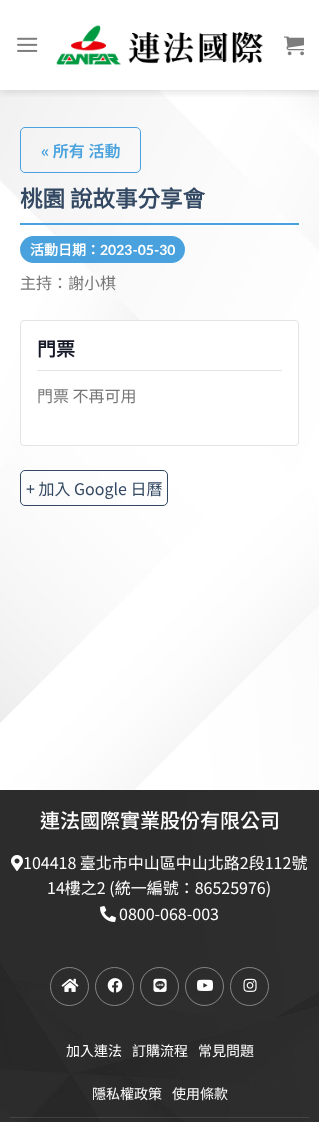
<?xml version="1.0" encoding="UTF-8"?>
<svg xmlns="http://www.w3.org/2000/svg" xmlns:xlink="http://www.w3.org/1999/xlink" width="319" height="1122">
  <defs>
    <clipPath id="clip1"><rect x="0" y="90" width="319" height="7" /></clipPath>
  </defs>
  <rect width="100%" height="100%" fill="#ffffff" />
  <image x="0" y="90" width="319" height="700" xlink:href="image4.png" />
  <g clip-path="url(#clip1)">
    <rect x="1" y="1" width="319" height="90" fill="#000000" fill-opacity="0.15" filter="blur(5px)" />
  </g>
  <image x="17" y="37" width="21" height="15" xlink:href="image1.png" />
  <image x="56" y="25" width="207" height="40" xlink:href="image2.png" />
  <image x="284" y="36" width="20" height="20" xlink:href="image3.png" />
  <rect x="20.5" y="127.5" width="120" height="45" rx="4.5" fill="none" stroke="#49a2de" />
  <rect x="20" y="223" width="279" height="2" fill="#49a2de" />
  <rect x="20" y="236" width="165" height="27" rx="13.5" fill="#49a2de" />
  <rect x="20.5" y="320.5" width="278" height="125" rx="3.5" fill="#ffffff" stroke="#e4e4e4" />
  <rect x="37" y="370" width="245" height="1" fill="#e4e4e4" />
  <rect x="20.5" y="470.5" width="147" height="35" rx="4.5" fill="none" stroke="#334862" />
  <image x="0" y="790" width="319" height="332" xlink:href="image5.png" />
  <image x="11" y="855" width="12" height="16" xlink:href="image6.png" />
  <image x="100" y="906" width="16" height="16" xlink:href="image7.png" />
  <circle cx="69.5" cy="986.5" r="19" fill="none" stroke="#858585" />
  <image x="61" y="978" width="18" height="14" xlink:href="image8.png" />
  <circle cx="114.5" cy="986.5" r="19" fill="none" stroke="#858585" />
  <image x="107" y="978" width="16" height="15" xlink:href="image9.png" />
  <circle cx="159.5" cy="986.5" r="19" fill="none" stroke="#ffffff" stroke-opacity="0.42" />
  <image x="153" y="978" width="14" height="14" xlink:href="image10.png" />
  <circle cx="204.5" cy="986.5" r="19" fill="none" stroke="#ffffff" stroke-opacity="0.42" />
  <image x="197" y="979" width="16" height="12" xlink:href="image11.png" />
  <circle cx="249.5" cy="986.5" r="19" fill="none" stroke="#858585" />
  <image x="243" y="978" width="14" height="14" xlink:href="image12.png" />
  <rect x="10" y="1117" width="299" height="1" fill="#ffffff" fill-opacity="0.11" />
  <text x="41" y="157" style="font-family: Noto Sans TC; font-size: 16px; font-weight: 600; fill: #49a2de">« 所有 活動</text>
  <text x="20" y="207" style="font-family: Noto Sans CJK TC; font-size: 22.5px; font-weight: bold; fill: #334862">桃園 說故事分享會</text>
  <text x="30" y="255" style="font-family: Noto Sans CJK TC; font-size: 14px; font-weight: bold; fill: #ffffff">活動日期：</text>
  <text x="100" y="255" style="font-family: Lato; font-size: 14px; font-weight: bold; fill: #ffffff">2023-05-30</text>
  <text x="20" y="289" style="font-family: Noto Sans TC; font-size: 16px; fill: #777777">主持：謝小棋</text>
  <text x="37" y="356" style="font-family: Noto Sans CJK TC; font-size: 19px; font-weight: bold; fill: #141827">門票</text>
  <text x="37" y="402" style="font-family: Noto Sans TC; font-size: 16px; fill: #777777">門票 不再可用</text>
  <text x="26" y="495" style="font-family: Noto Sans TC; font-size: 16px; fill: #334862">+ 加入 Google 日曆</text>
  <text x="40" y="828" style="font-family: Noto Sans TC; font-size: 20px; font-weight: 500; fill: #ffffff">連法國際實業股份有限公司</text>
  <text x="23" y="869" style="font-family: Noto Sans TC; font-size: 16px; fill: #ffffff">104418 臺北市中山區中山北路2段112號</text>
  <text x="47" y="894" style="font-family: Noto Sans TC; font-size: 16px; fill: #ffffff">14樓之2 (統一編號：86525976)</text>
  <text x="119" y="920" style="font-family: Noto Sans TC; font-size: 16px; fill: #ffffff">0800-068-003</text>
  <text x="66" y="1056" style="font-family: Noto Sans TC; font-size: 14px; fill: #ffffff">加入連法</text>
  <text x="132" y="1056" style="font-family: Noto Sans TC; font-size: 14px; fill: #ffffff">訂購流程</text>
  <text x="198" y="1056" style="font-family: Noto Sans TC; font-size: 14px; fill: #ffffff">常見問題</text>
  <text x="92" y="1099" style="font-family: Noto Sans TC; font-size: 14px; fill: #ffffff">隱私權政策</text>
  <text x="172" y="1099" style="font-family: Noto Sans TC; font-size: 14px; fill: #ffffff">使用條款</text>
</svg>
